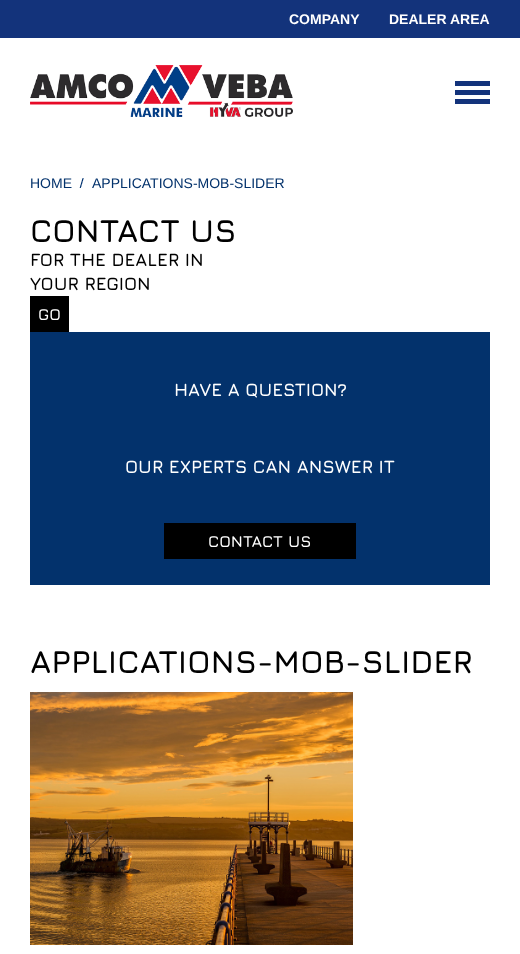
<?xml version="1.0" encoding="UTF-8"?>
<svg xmlns="http://www.w3.org/2000/svg" xmlns:xlink="http://www.w3.org/1999/xlink" width="520" height="954">
  <rect width="100%" height="100%" fill="#ffffff" />
  <rect width="520" height="38" fill="#13337b" />
  <image x="30" y="65" width="263" height="52" xlink:href="image1.png" />
  <rect x="455" y="81" width="35" height="5" fill="#13337b" />
  <rect x="455" y="90" width="35" height="5" fill="#13337b" />
  <rect x="455" y="99" width="35" height="5" fill="#13337b" />
  <image x="79" y="178" width="5" height="10" xlink:href="image2.png" />
  <rect x="30" y="296" width="39" height="36" fill="#000000" />
  <rect x="30" y="332" width="460" height="253" fill="#03326c" />
  <rect x="164" y="523" width="192" height="36" fill="#000000" />
  <image x="30" y="692" width="323" height="253" xlink:href="image3.png" />
  <text x="289" y="24" style="font-family: Liberation Sans; font-size: 14px; font-weight: bold; fill: #ffffff">COMPANY</text>
  <text x="389" y="24" style="font-family: Liberation Sans; font-size: 14px; font-weight: bold; fill: #ffffff">DEALER AREA</text>
  <text x="30" y="188" style="font-family: Liberation Sans; font-size: 14px; fill: #03326c">HOME</text>
  <text x="92" y="188" style="font-family: Liberation Sans; font-size: 14px; fill: #03326c">APPLICATIONS-MOB-SLIDER</text>
  <text x="30" y="242" style="font-family: Jura; font-size: 32px; font-weight: bold; fill: #000000">CONTACT US</text>
  <text x="30" y="266" style="font-family: Jura; font-size: 18px; font-weight: bold; fill: #000000">FOR THE DEALER IN</text>
  <text x="30" y="290" style="font-family: Jura; font-size: 18px; font-weight: bold; fill: #000000">YOUR REGION</text>
  <text x="38" y="320" style="font-family: Jura; font-size: 16px; font-weight: bold; fill: #ffffff">GO</text>
  <text x="174" y="396" style="font-family: Jura; font-size: 18px; font-weight: bold; fill: #ffffff">HAVE A QUESTION?</text>
  <text x="125" y="473" style="font-family: Jura; font-size: 18px; font-weight: bold; fill: #ffffff">OUR EXPERTS CAN ANSWER IT</text>
  <text x="208" y="547" style="font-family: Jura; font-size: 16px; font-weight: bold; fill: #ffffff">CONTACT US</text>
  <text x="30" y="673" style="font-family: Jura; font-size: 32px; font-weight: bold; fill: #000000">APPLICATIONS-MOB-SLIDER</text>
</svg>
